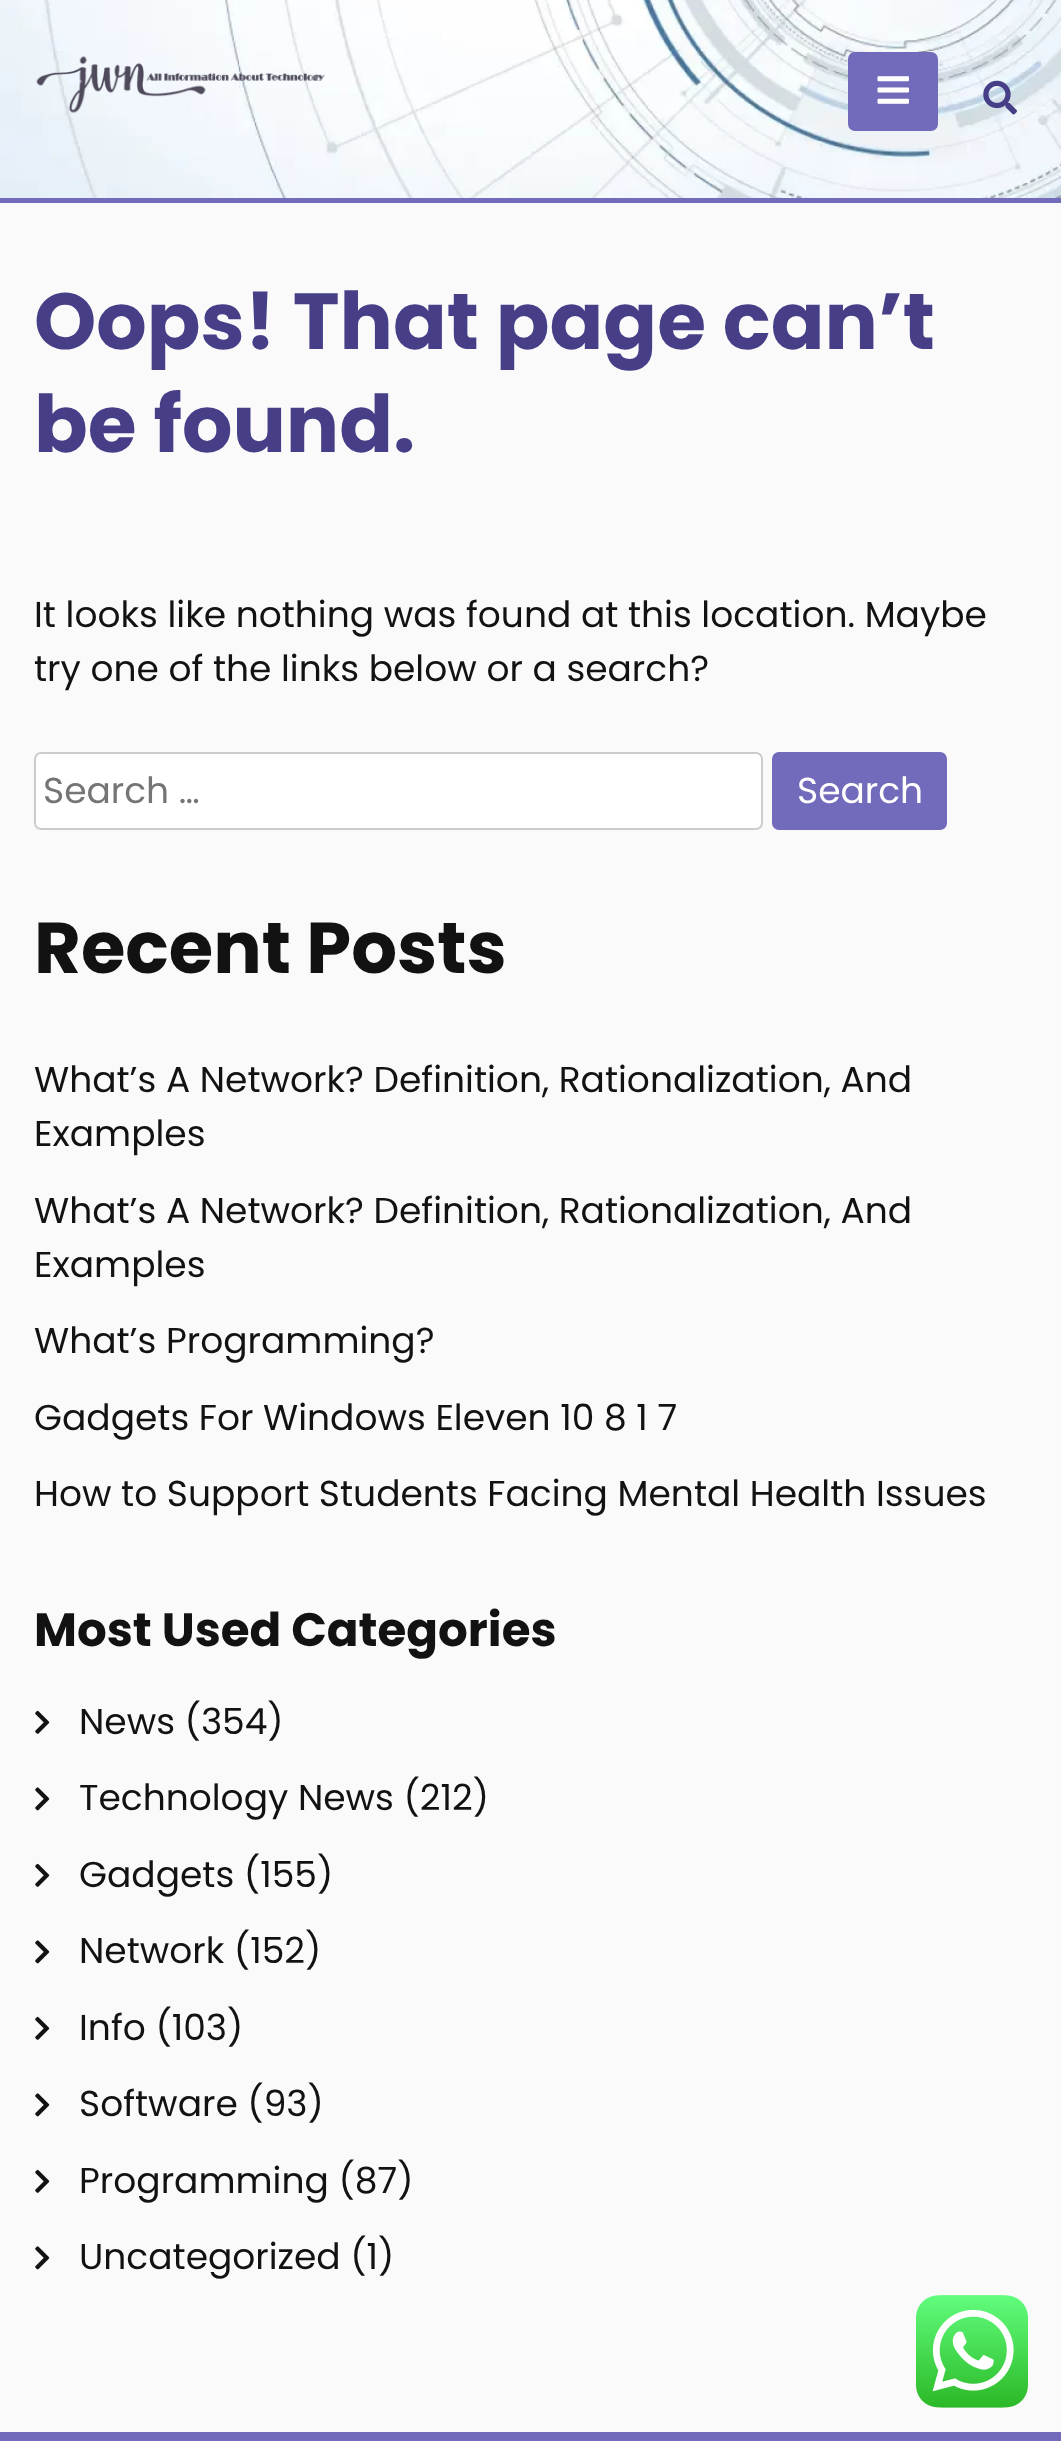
<?xml version="1.0" encoding="UTF-8"?>
<svg xmlns="http://www.w3.org/2000/svg" xmlns:xlink="http://www.w3.org/1999/xlink" width="1061" height="2441">
  <rect width="100%" height="100%" fill="#fafafa" />
  <image x="0" y="0" width="1061" height="198" xlink:href="image1.png" />
  <rect y="198" width="1061" height="5" fill="#726abb" />
  <rect x="849" y="53" width="88" height="77" rx="6" fill="#726abb" stroke="#726abb" stroke-width="2" />
  <image x="877" y="76" width="32" height="28" xlink:href="image2.png" />
  <image x="36" y="56" width="289" height="57" xlink:href="image3.png" />
  <image x="983" y="80" width="34" height="35" xlink:href="image4.png" />
  <rect x="35" y="753" width="727" height="76" rx="6" fill="#ffffff" stroke="#cccccc" stroke-width="2" />
  <rect x="773" y="753" width="173" height="76" rx="6" fill="#726abb" stroke="#726abb" stroke-width="2" />
  <image x="35" y="1710" width="15" height="24" xlink:href="image5.png" />
  <image x="35" y="1787" width="15" height="24" xlink:href="image6.png" />
  <image x="35" y="1863" width="15" height="24" xlink:href="image5.png" />
  <image x="35" y="1940" width="15" height="24" xlink:href="image6.png" />
  <image x="35" y="2016" width="15" height="24" xlink:href="image5.png" />
  <image x="35" y="2093" width="15" height="24" xlink:href="image6.png" />
  <image x="35" y="2169" width="15" height="24" xlink:href="image5.png" />
  <image x="35" y="2246" width="15" height="24" xlink:href="image6.png" />
  <rect y="2432" width="1061" height="9" fill="#726abb" />
  <image x="916" y="2295" width="112" height="113" xlink:href="image7.png" />
  <text x="34" y="349" style="font-family: Poppins; font-size: 79.25px; font-weight: bold; fill: #463f87">Oops! That page can’t</text>
  <text x="34" y="452" style="font-family: Poppins; font-size: 79.25px; font-weight: bold; fill: #463f87">be found.</text>
  <text x="34" y="627" style="font-family: Poppins; font-size: 36px; fill: #121212">It looks like nothing was found at this location. Maybe</text>
  <text x="34" y="681" style="font-family: Poppins; font-size: 36px; fill: #121212">try one of the links below or a search?</text>
  <text x="43" y="803" style="font-family: Poppins; font-size: 36px; fill: #757575">Search …</text>
  <text x="797" y="803" style="font-family: Poppins; font-size: 36px; fill: #ffffff">Search</text>
  <text x="34" y="973" style="font-family: Poppins; font-size: 72px; font-weight: bold; fill: #121212">Recent Posts</text>
  <text x="34" y="1092" style="font-family: Poppins; font-size: 36px; fill: #121212">What’s A Network? Definition, Rationalization, And</text>
  <text x="34" y="1146" style="font-family: Poppins; font-size: 36px; fill: #121212">Examples</text>
  <text x="34" y="1223" style="font-family: Poppins; font-size: 36px; fill: #121212">What’s A Network? Definition, Rationalization, And</text>
  <text x="34" y="1277" style="font-family: Poppins; font-size: 36px; fill: #121212">Examples</text>
  <text x="34" y="1353" style="font-family: Poppins; font-size: 36px; fill: #121212">What’s Programming?</text>
  <text x="34" y="1430" style="font-family: Poppins; font-size: 36px; fill: #121212">Gadgets For Windows Eleven 10 8 1 7</text>
  <text x="34" y="1506" style="font-family: Poppins; font-size: 36px; fill: #121212">How to Support Students Facing Mental Health Issues</text>
  <text x="34" y="1646" style="font-family: Poppins; font-size: 46.75px; font-weight: bold; fill: #121212">Most Used Categories</text>
  <text x="79" y="1734" style="font-family: Poppins; font-size: 36px; fill: #121212">News (354)</text>
  <text x="79" y="1810" style="font-family: Poppins; font-size: 36px; fill: #121212">Technology News (212)</text>
  <text x="79" y="1887" style="font-family: Poppins; font-size: 36px; fill: #121212">Gadgets (155)</text>
  <text x="79" y="1963" style="font-family: Poppins; font-size: 36px; fill: #121212">Network (152)</text>
  <text x="79" y="2040" style="font-family: Poppins; font-size: 36px; fill: #121212">Info (103)</text>
  <text x="79" y="2116" style="font-family: Poppins; font-size: 36px; fill: #121212">Software (93)</text>
  <text x="79" y="2193" style="font-family: Poppins; font-size: 36px; fill: #121212">Programming (87)</text>
  <text x="79" y="2269" style="font-family: Poppins; font-size: 36px; fill: #121212">Uncategorized (1)</text>
</svg>
